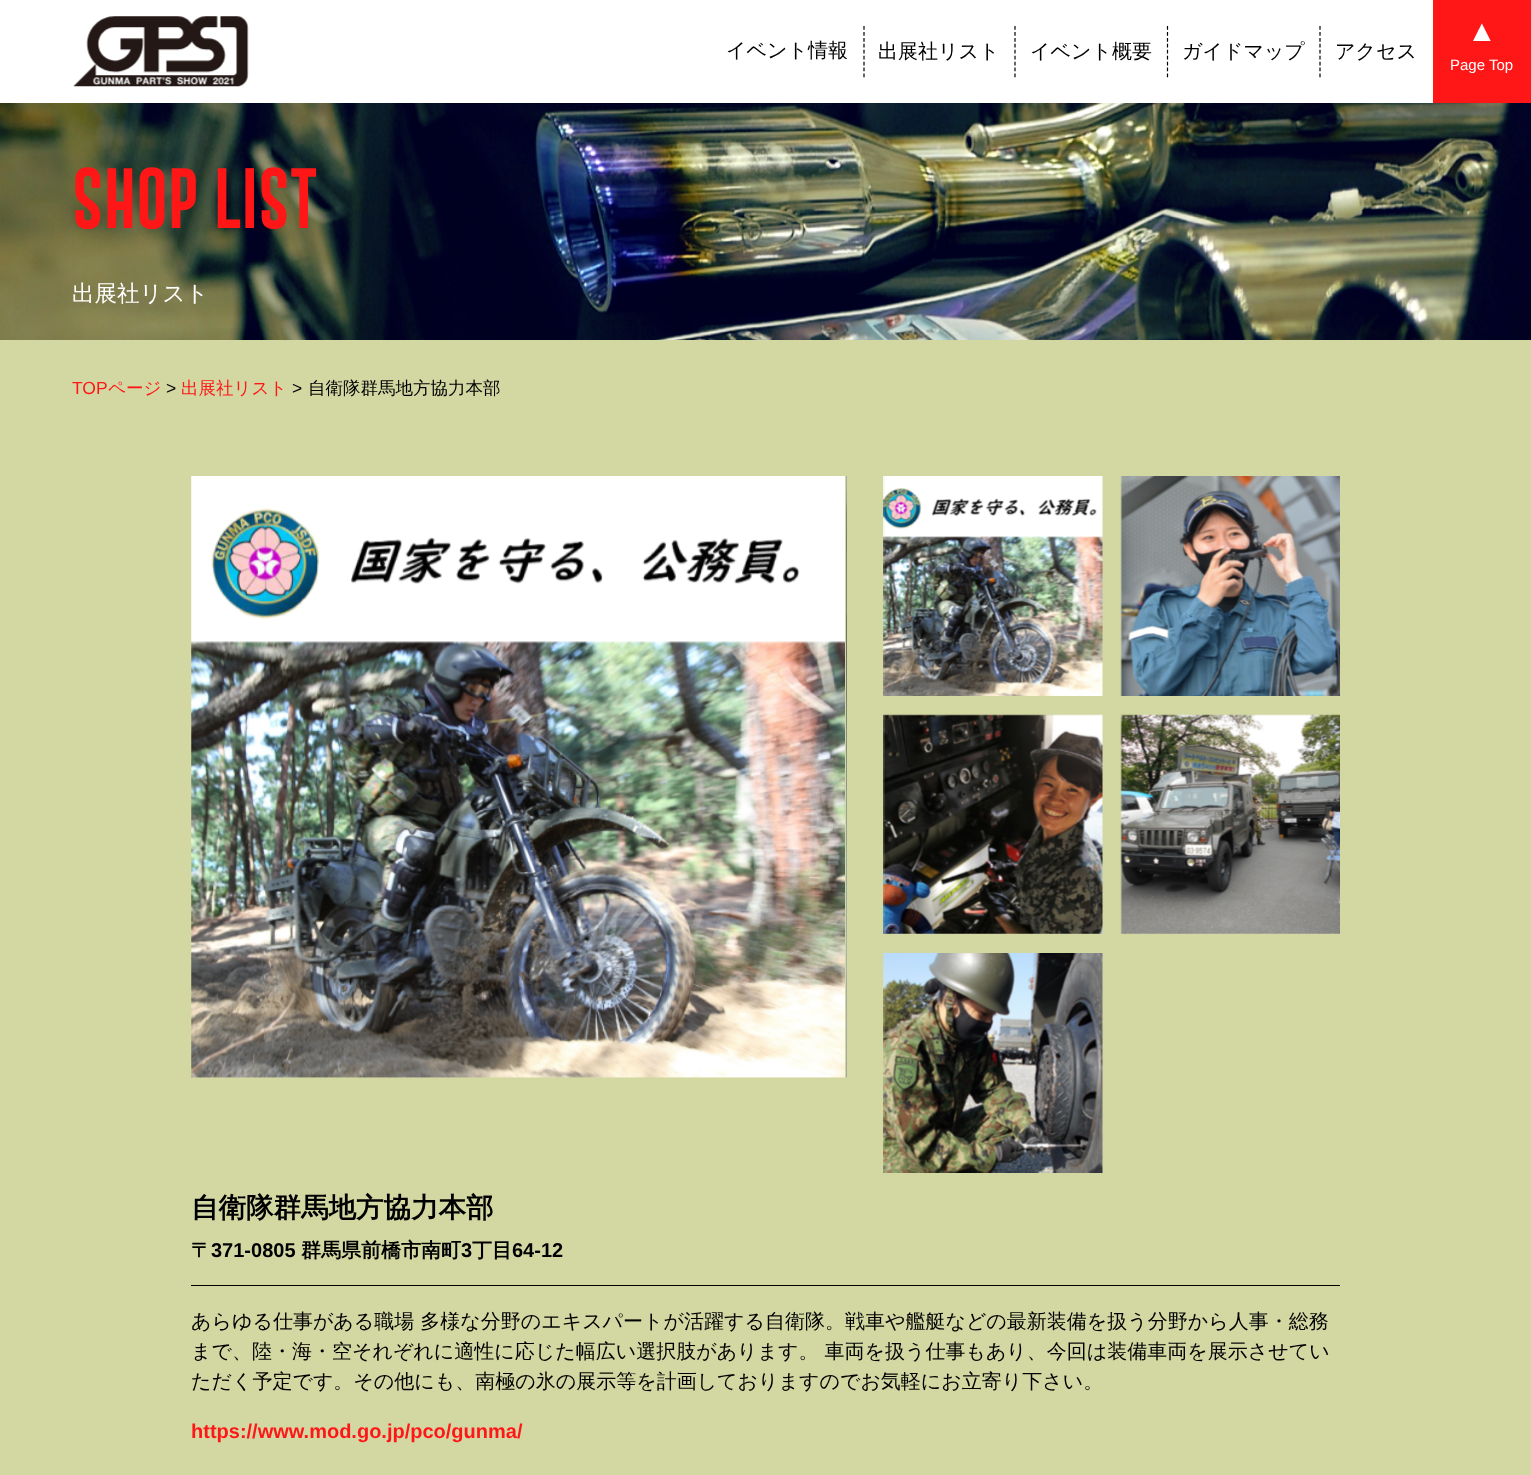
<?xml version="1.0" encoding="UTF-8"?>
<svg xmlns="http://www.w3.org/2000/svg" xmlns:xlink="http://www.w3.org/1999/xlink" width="1531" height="1475">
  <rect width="100%" height="100%" fill="#d3d8a3" />
  <rect width="1433" height="103" fill="#ffffff" />
  <image x="73" y="16" width="176" height="71" xlink:href="image1.png" />
  <path d="M 864 26 v 51.5" fill="none" stroke="#000000" stroke-width="1.2" stroke-dasharray="3.75 2.19" />
  <path d="M 1015 26 v 51.5" fill="none" stroke="#000000" stroke-width="1.2" stroke-dasharray="3.75 2.19" />
  <path d="M 1167.5 26 v 51.5" fill="none" stroke="#000000" stroke-width="1.2" stroke-dasharray="3.75 2.19" />
  <path d="M 1320 26 v 51.5" fill="none" stroke="#000000" stroke-width="1.2" stroke-dasharray="3.75 2.19" />
  <rect x="1433" width="98" height="103" fill="#ff1717" />
  <image x="0" y="103" width="1531" height="237" xlink:href="image2.png" />
  <image x="191" y="476" width="654" height="602" xlink:href="image3.png" />
  <image x="846" y="476" width="1" height="602" xlink:href="image4.png" />
  <image x="883" y="476" width="220" height="220" xlink:href="image5.png" />
  <image x="1120" y="476" width="220" height="220" xlink:href="image6.png" />
  <image x="883" y="714" width="220" height="220" xlink:href="image7.png" />
  <image x="1120" y="714" width="220" height="220" xlink:href="image8.png" />
  <image x="883" y="953" width="220" height="220" xlink:href="image9.png" />
  <rect x="191" y="1285" width="1149" height="1" fill="#000000" />
  <text x="726" y="57" style="font-family: WenQuanYi Zen Hei; font-size: 20px; font-weight: 500; fill: #000000">イベント情報</text>
  <text x="878" y="58" style="font-family: WenQuanYi Zen Hei; font-size: 20px; font-weight: 500; fill: #000000">出展社リスト</text>
  <text x="1030" y="58" style="font-family: WenQuanYi Zen Hei; font-size: 20px; font-weight: 500; fill: #000000">イベント概要</text>
  <text x="1182" y="58" style="font-family: WenQuanYi Zen Hei; font-size: 20px; font-weight: 500; fill: #000000">ガイドマップ</text>
  <text x="1335" y="58" style="font-family: WenQuanYi Zen Hei; font-size: 20px; font-weight: 500; fill: #000000">アクセス</text>
  <text x="1467" y="41" style="font-family: Liberation Sans; font-size: 30px; fill: #ffffff">▲</text>
  <text x="1450" y="70" style="font-family: Liberation Sans; font-size: 15px; fill: #ffffff">Page Top</text>
  <text x="72" y="228" style="font-family: 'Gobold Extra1'; font-size: 62.5px; font-weight: bold; fill: #ff1717">SHOP LIST</text>
  <text x="72" y="301" style="font-family: WenQuanYi Zen Hei; font-size: 22.5px; font-weight: 500; fill: #ffffff">出展社リスト</text>
  <text x="72" y="394" style="font-family: Liberation Sans; font-size: 17.5px; fill: #ff1717">TOP</text>
  <text x="108" y="394" style="font-family: WenQuanYi Zen Hei; font-size: 17.5px; font-weight: 500; fill: #ff1717">ページ</text>
  <text x="166" y="394" style="font-family: Liberation Sans; font-size: 17.5px; fill: #000000">&gt;</text>
  <text x="181" y="394" style="font-family: WenQuanYi Zen Hei; font-size: 17.5px; font-weight: 500; fill: #ff1717">出展社リスト</text>
  <text x="292" y="394" style="font-family: Liberation Sans; font-size: 17.5px; fill: #000000">&gt;</text>
  <text x="308" y="394" style="font-family: WenQuanYi Zen Hei; font-size: 17.5px; font-weight: 500; fill: #000000">自衛隊群馬地方協力本部</text>
  <text x="191" y="1217" style="font-family: WenQuanYi Zen Hei; font-size: 27.5px; font-weight: bold; fill: #000000">自衛隊群馬地方協力本部</text>
  <text x="191" y="1257" style="font-family: WenQuanYi Zen Hei; font-size: 20px; font-weight: bold; fill: #000000">〒</text>
  <text x="211" y="1257" style="font-family: Liberation Sans; font-size: 20px; font-weight: bold; fill: #000000">371-0805</text>
  <text x="301" y="1257" style="font-family: WenQuanYi Zen Hei; font-size: 20px; font-weight: bold; fill: #000000">群馬県前橋市南町</text>
  <text x="461" y="1257" style="font-family: Liberation Sans; font-size: 20px; font-weight: bold; fill: #000000">3</text>
  <text x="472" y="1257" style="font-family: WenQuanYi Zen Hei; font-size: 20px; font-weight: bold; fill: #000000">丁目</text>
  <text x="512" y="1257" style="font-family: Liberation Sans; font-size: 20px; font-weight: bold; fill: #000000">64-12</text>
  <text x="191" y="1328" style="font-family: WenQuanYi Zen Hei; font-size: 20px; font-weight: 500; fill: #000000">あらゆる仕事がある職場 多様な分野のエキスパートが活躍する自衛隊。戦車や艦艇などの最新装備を扱う分野から人事・総務</text>
  <text x="191" y="1358" style="font-family: WenQuanYi Zen Hei; font-size: 20px; font-weight: 500; fill: #000000">まで、陸・海・空それぞれに適性に応じた幅広い選択肢があります。 車両を扱う仕事もあり、今回は装備車両を展示させてい</text>
  <text x="191" y="1388" style="font-family: WenQuanYi Zen Hei; font-size: 20px; font-weight: 500; fill: #000000">ただく予定です。その他にも、南極の氷の展示等を計画しておりますのでお気軽にお立寄り下さい。</text>
  <text x="191" y="1438" style="font-family: Liberation Sans; font-size: 20px; font-weight: bold; fill: #ff1717">https://www.mod.go.jp/pco/gunma/</text>
</svg>
